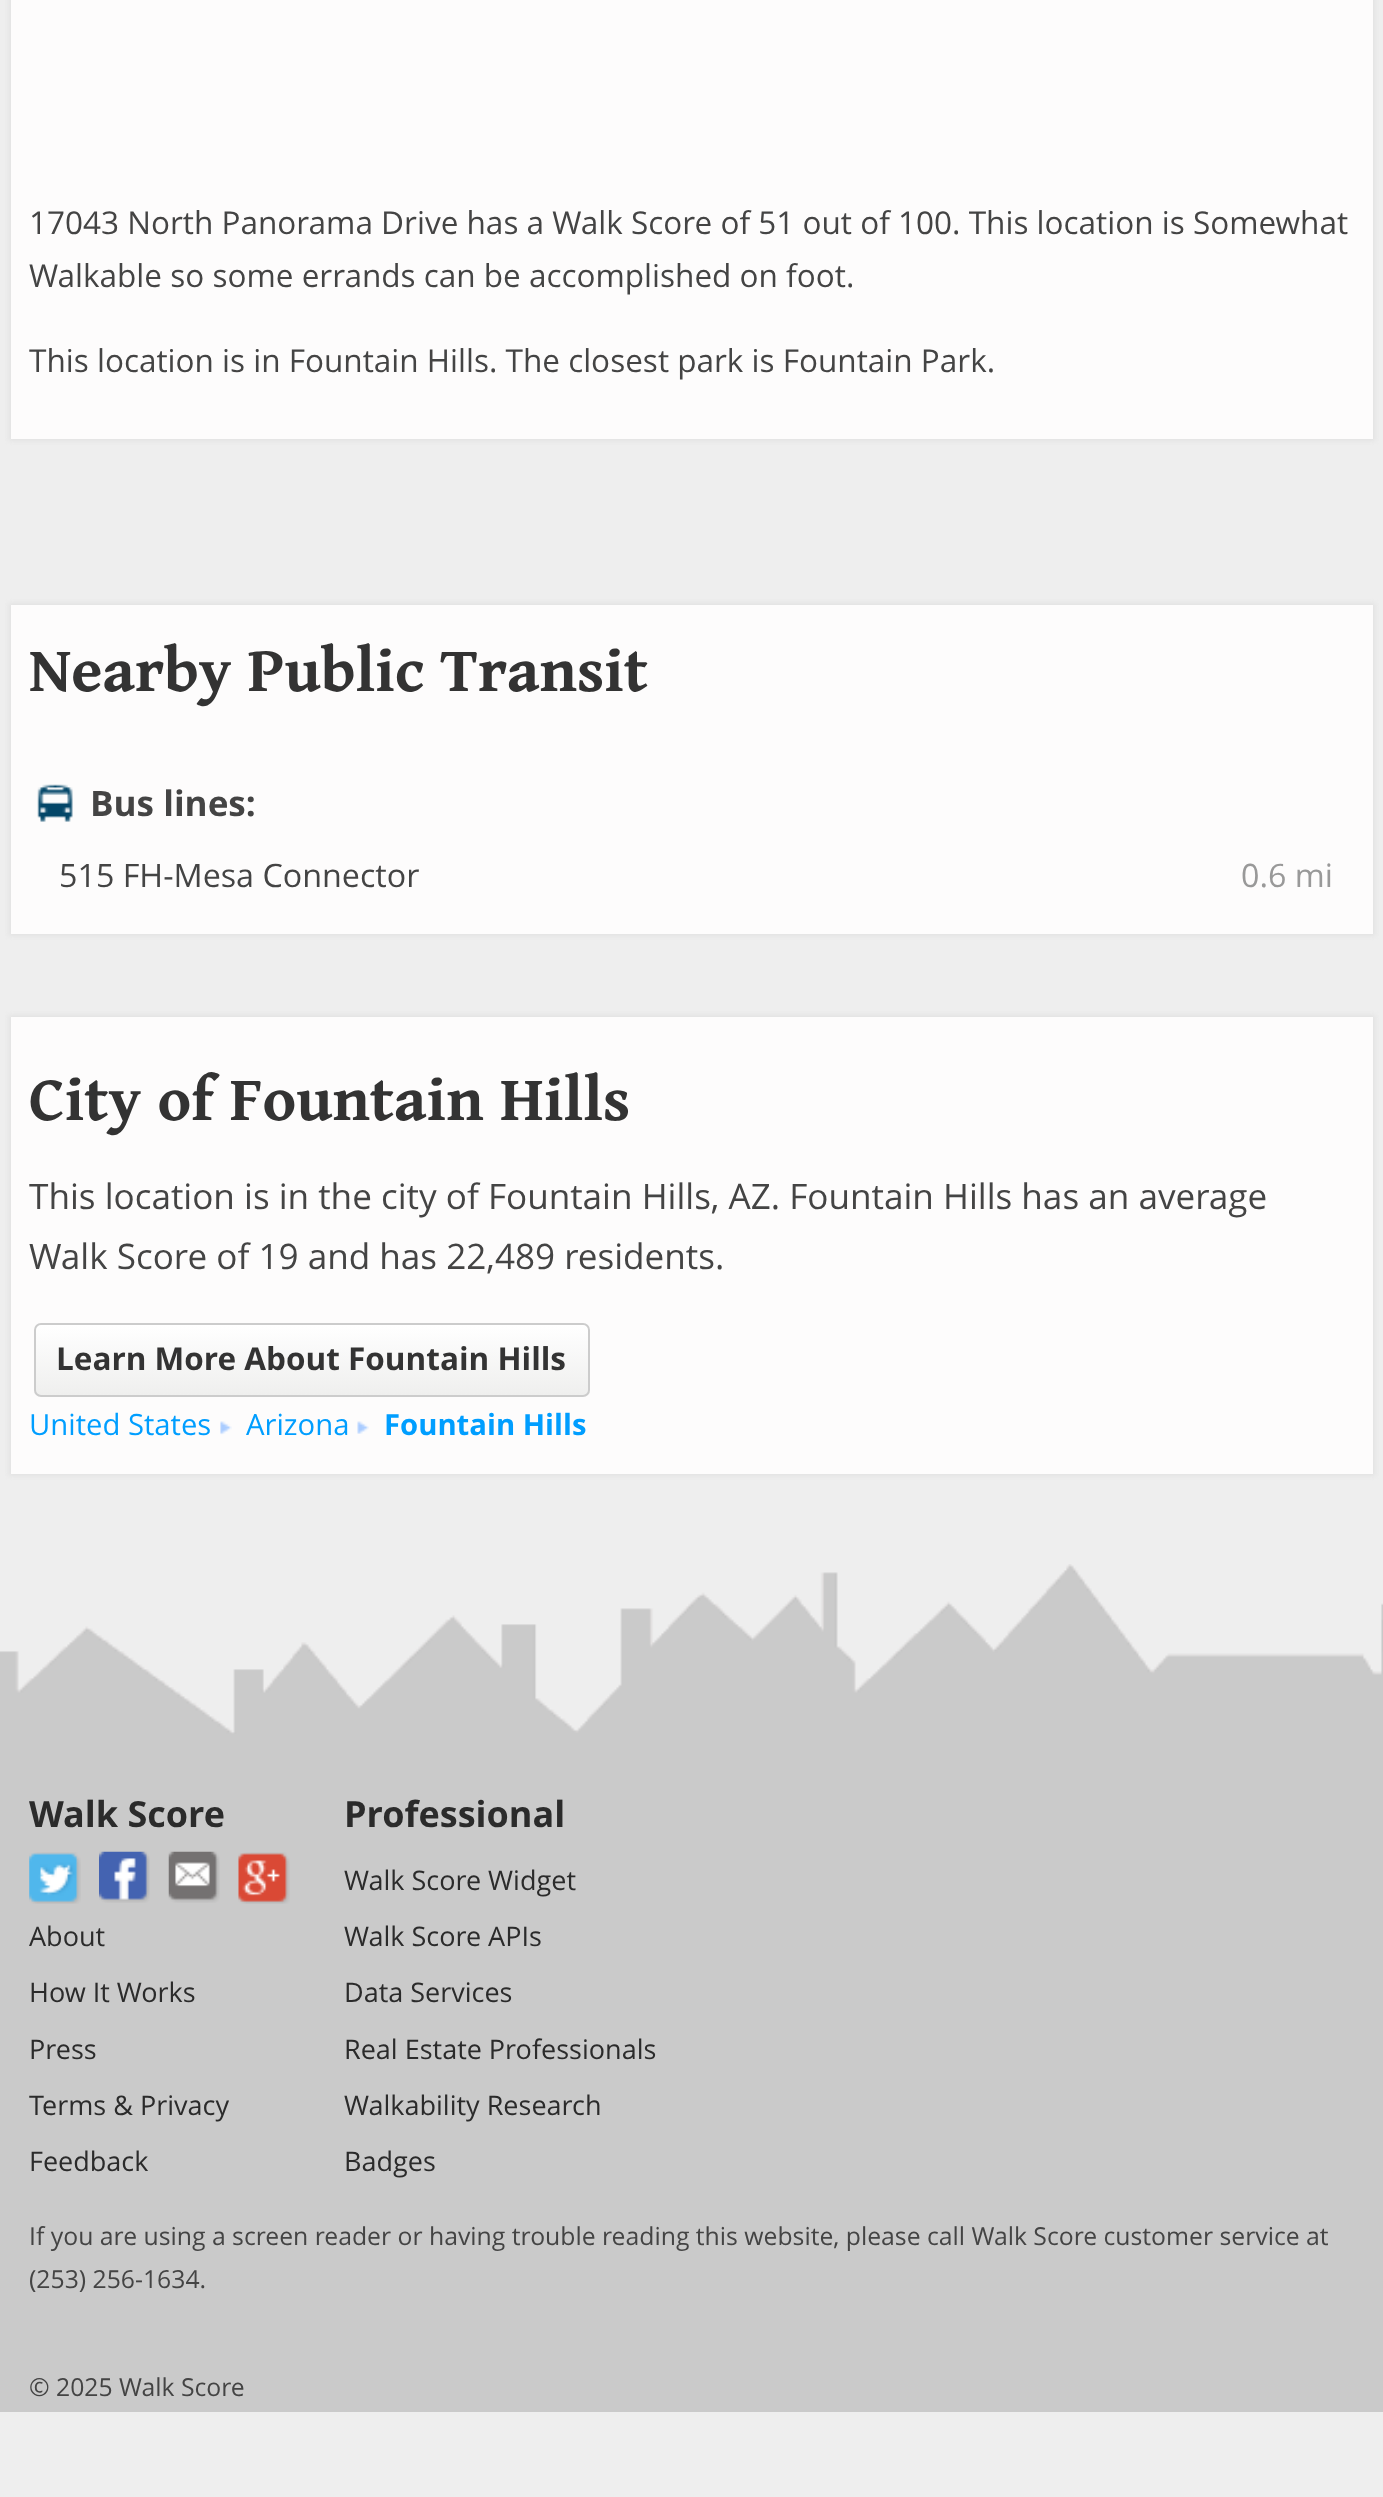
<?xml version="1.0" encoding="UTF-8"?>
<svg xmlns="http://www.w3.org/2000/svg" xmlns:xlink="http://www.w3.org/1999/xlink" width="1383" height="2497">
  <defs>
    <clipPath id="clip1"><rect x="34" y="1323" width="556" height="74" rx="7" /></clipPath>
    <linearGradient id="g1" gradientUnits="userSpaceOnUse" x1="312" y1="1325" x2="312" y2="1395"><stop offset="0" stop-color="#ffffff" /><stop offset="1" stop-color="#efefee" /></linearGradient>
  </defs>
  <rect width="100%" height="100%" fill="#eeeeee" />
  <rect x="9" y="-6" width="1366" height="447" fill="#e2e2e2" filter="blur(2px)" />
  <rect x="11" width="1362" height="439" fill="#fdfcfc" />
  <rect x="9" y="603" width="1366" height="333" fill="#e2e2e2" filter="blur(2px)" />
  <rect x="11" y="605" width="1362" height="329" fill="#fdfcfc" />
  <image x="37" y="784" width="36" height="38" xlink:href="image1.png" />
  <rect x="9" y="1015" width="1366" height="461" fill="#e2e2e2" filter="blur(2px)" />
  <rect x="11" y="1017" width="1362" height="457" fill="#fdfcfc" />
  <g clip-path="url(#clip1)">
    <rect x="34" y="1325" width="556" height="70" fill="url(#g1)" />
  </g>
  <rect x="35" y="1324" width="554" height="72" rx="6" fill="none" stroke="#cccccc" stroke-width="2" />
  <image x="220" y="1421" width="12" height="14" xlink:href="image2.png" />
  <image x="357" y="1421" width="12" height="13" xlink:href="image3.png" />
  <rect y="1734" width="1383" height="678" fill="#cacaca" />
  <image x="0" y="1564" width="1383" height="170" xlink:href="image4.png" />
  <image x="29" y="1852" width="52" height="52" xlink:href="image5.png" />
  <image x="99" y="1851" width="51" height="52" xlink:href="image6.png" />
  <image x="168" y="1851" width="52" height="52" xlink:href="image7.png" />
  <image x="238" y="1852" width="52" height="52" xlink:href="image8.png" />
  <text x="29" y="234" style="font-family: Open Sans; font-size: 31.5px; fill: #444444">17043 North Panorama Drive has a Walk Score of 51 out of 100. This location is Somewhat</text>
  <text x="29" y="287" style="font-family: Open Sans; font-size: 31.5px; fill: #444444">Walkable so some errands can be accomplished on foot.</text>
  <text x="29" y="372" style="font-family: Open Sans; font-size: 31.5px; fill: #444444">This location is in Fountain Hills. The closest park is Fountain Park.</text>
  <text x="29" y="691" style="font-family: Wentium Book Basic; font-size: 63.4px; font-weight: bold; fill: #333333">Nearby Public Transit</text>
  <text x="90" y="816" style="font-family: Open Sans; font-size: 35.1px; font-weight: bold; fill: #444444">Bus lines:</text>
  <text x="59" y="887" style="font-family: Open Sans; font-size: 32.25px; fill: #444444">515 FH-Mesa Connector</text>
  <text x="1241" y="887" style="font-family: Open Sans; font-size: 32.25px; fill: #999999">0.6 mi</text>
  <text x="29" y="1120" style="font-family: Wentium Book Basic; font-size: 63.4px; font-weight: bold; fill: #333333">City of Fountain Hills</text>
  <text x="29" y="1209" style="font-family: Open Sans; font-size: 35.1px; fill: #444444">This location is in the city of Fountain Hills, AZ. Fountain Hills has an average</text>
  <text x="29" y="1269" style="font-family: Open Sans; font-size: 35.1px; fill: #444444">Walk Score of 19 and has 22,489 residents.</text>
  <text x="56" y="1370" style="font-family: Open Sans; font-size: 31.5px; font-weight: bold; fill: #333333">Learn More About Fountain Hills</text>
  <text x="29" y="1435" style="font-family: Open Sans; font-size: 29.25px; fill: #009eff">United States</text>
  <text x="246" y="1435" style="font-family: Open Sans; font-size: 29.25px; fill: #009eff">Arizona</text>
  <text x="384" y="1435" style="font-family: Open Sans; font-size: 29.25px; font-weight: bold; fill: #009eff">Fountain Hills</text>
  <text x="29" y="1827" style="font-family: Open Sans; font-size: 36px; font-weight: bold; fill: #2b2b2b">Walk Score</text>
  <text x="29" y="1946" style="font-family: Open Sans; font-size: 27px; fill: #2b2b2b">About</text>
  <text x="29" y="2002" style="font-family: Open Sans; font-size: 27px; fill: #2b2b2b">How It Works</text>
  <text x="29" y="2059" style="font-family: Open Sans; font-size: 27px; fill: #2b2b2b">Press</text>
  <text x="29" y="2115" style="font-family: Open Sans; font-size: 27px; fill: #2b2b2b">Terms &amp; Privacy</text>
  <text x="29" y="2171" style="font-family: Open Sans; font-size: 27px; fill: #2b2b2b">Feedback</text>
  <text x="344" y="1827" style="font-family: Open Sans; font-size: 36px; font-weight: bold; fill: #2b2b2b">Professional</text>
  <text x="344" y="1890" style="font-family: Open Sans; font-size: 27px; fill: #2b2b2b">Walk Score Widget</text>
  <text x="344" y="1946" style="font-family: Open Sans; font-size: 27px; fill: #2b2b2b">Walk Score APIs</text>
  <text x="344" y="2002" style="font-family: Open Sans; font-size: 27px; fill: #2b2b2b">Data Services</text>
  <text x="344" y="2059" style="font-family: Open Sans; font-size: 27px; fill: #2b2b2b">Real Estate Professionals</text>
  <text x="344" y="2115" style="font-family: Open Sans; font-size: 27px; fill: #2b2b2b">Walkability Research</text>
  <text x="344" y="2171" style="font-family: Open Sans; font-size: 27px; fill: #2b2b2b">Badges</text>
  <text x="29" y="2245" style="font-family: Open Sans; font-size: 24.75px; fill: #444444">If you are using a screen reader or having trouble reading this website, please call Walk Score customer service at</text>
  <text x="29" y="2288" style="font-family: Open Sans; font-size: 24.75px; fill: #444444">(253) 256-1634.</text>
  <text x="29" y="2396" style="font-family: Open Sans; font-size: 24.75px; fill: #444444">© 2025 Walk Score</text>
</svg>
